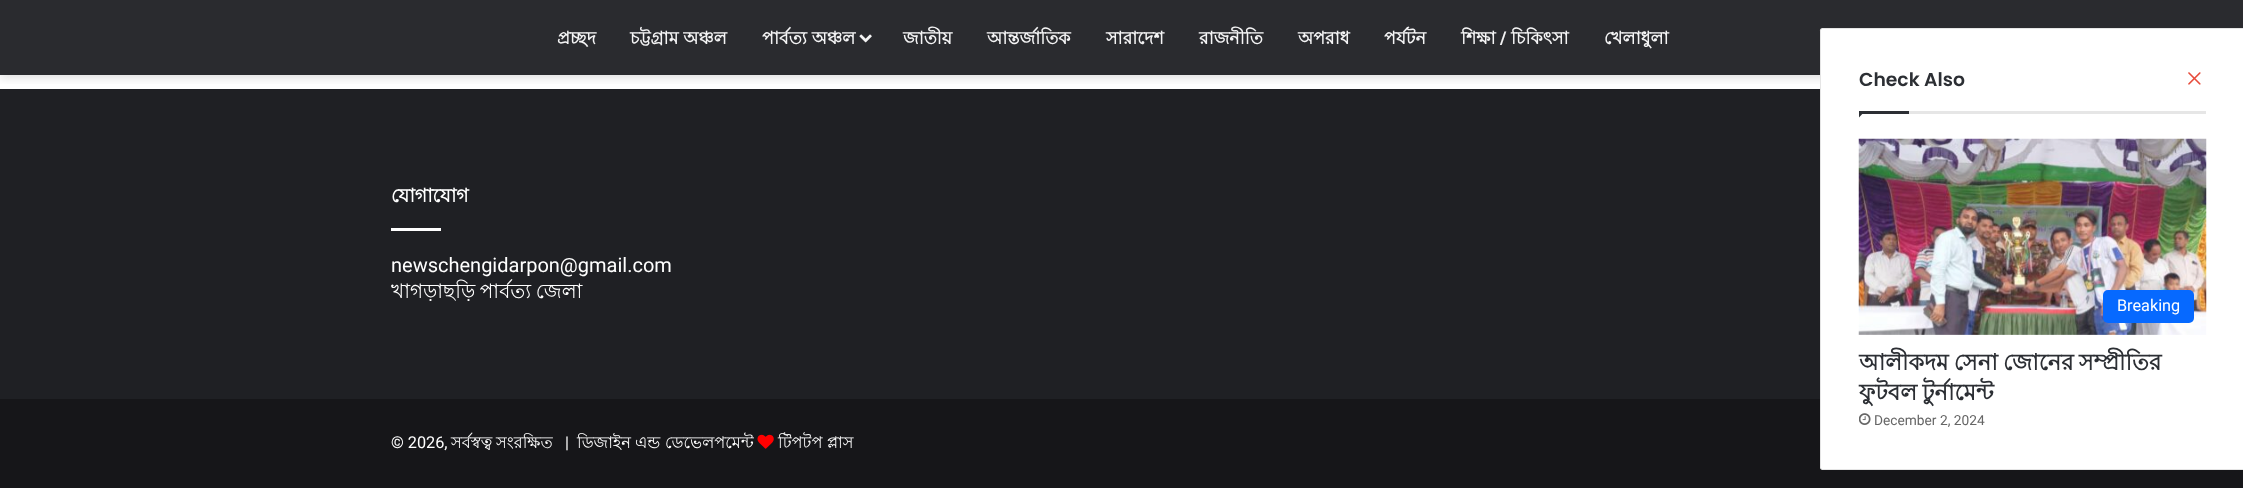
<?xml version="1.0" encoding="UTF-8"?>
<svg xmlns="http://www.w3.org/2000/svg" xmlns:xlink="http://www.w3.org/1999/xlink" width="2243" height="488">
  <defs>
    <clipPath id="clip1"><rect x="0" y="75" width="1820" height="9" /></clipPath>
  </defs>
  <rect width="100%" height="100%" fill="#ffffff" />
  <rect width="2243" height="75" fill="#2a2b2f" />
  <rect y="89" width="1820" height="310" fill="#1f2024" />
  <g clip-path="url(#clip1)">
    <rect y="3" width="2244" height="75" fill="#636363" fill-opacity="0.2" filter="blur(5px)" />
  </g>
  <image x="859" y="34" width="13" height="9" xlink:href="image1.png" />
  <rect x="391" y="228" width="50" height="3" fill="#ffffff" />
  <rect y="399" width="2243" height="89" fill="#161619" />
  <image x="757" y="434" width="17" height="15" xlink:href="image2.png" />
  <path d="M 1822.5 28 h 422.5 v 442 h -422.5 c -1.5 0 -2.5 -1 -2.5 -2.5 v -437 c 0 -1.5 1 -2.5 2.5 -2.5 z" fill="#ffffff" />
  <path d="M 1822.5 28.5 h 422 v 441 h -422 c -1 0 -2 -1 -2 -2 v -437 c 0 -1 1 -2 2 -2 z" fill="none" stroke="#000000" stroke-opacity="0.1" />
  <rect x="1909" y="111" width="297" height="3" fill="#e6e6e6" />
  <image x="2188" y="72" width="13" height="13" xlink:href="image3.png" />
  <path d="M 1859 111 h 6 l -6 6.5 z" fill="#2c2f34" />
  <rect x="1859" y="111" width="50" height="3" fill="#2c2f34" />
  <image x="1858" y="138" width="349" height="197" xlink:href="image4.png" />
  <rect x="2103" y="290" width="91" height="33" rx="5" fill="#0669ff" />
  <image x="1859" y="413" width="12" height="12" xlink:href="image5.png" />
  <text x="557" y="44" style="font-family: Lohit Bengali; font-size: 17.5px; font-weight: bold; fill: #f4f4f5">প্রচ্ছদ</text>
  <text x="630" y="44" style="font-family: Lohit Bengali; font-size: 17.5px; font-weight: bold; fill: #f4f4f5">চট্টগ্রাম অঞ্চল</text>
  <text x="762" y="44" style="font-family: Lohit Bengali; font-size: 17.5px; font-weight: bold; fill: #f4f4f5">পার্বত্য অঞ্চল</text>
  <text x="903" y="44" style="font-family: Lohit Bengali; font-size: 17.5px; font-weight: bold; fill: #f4f4f5">জাতীয়</text>
  <text x="987" y="44" style="font-family: Lohit Bengali; font-size: 17.5px; font-weight: bold; fill: #f4f4f5">আন্তর্জাতিক</text>
  <text x="1106" y="44" style="font-family: Lohit Bengali; font-size: 17.5px; font-weight: bold; fill: #f4f4f5">সারাদেশ</text>
  <text x="1199" y="44" style="font-family: Lohit Bengali; font-size: 17.5px; font-weight: bold; fill: #f4f4f5">রাজনীতি</text>
  <text x="1298" y="44" style="font-family: Lohit Bengali; font-size: 17.5px; font-weight: bold; fill: #f4f4f5">অপরাধ</text>
  <text x="1384" y="44" style="font-family: Lohit Bengali; font-size: 17.5px; font-weight: bold; fill: #f4f4f5">পর্যটন</text>
  <text x="1461" y="44" style="font-family: Lohit Bengali; font-size: 17.5px; font-weight: bold; fill: #f4f4f5">শিক্ষা</text>
  <text x="1500" y="44" style="font-family: Roboto; font-size: 17.5px; font-weight: bold; fill: #f4f4f5">/</text>
  <text x="1511" y="44" style="font-family: Lohit Bengali; font-size: 17.5px; font-weight: bold; fill: #f4f4f5">চিকিৎসা</text>
  <text x="1604" y="44" style="font-family: Lohit Bengali; font-size: 17.5px; font-weight: bold; fill: #f4f4f5">খেলাধুলা</text>
  <text x="391" y="202" style="font-family: Lohit Bengali; font-size: 18.75px; font-weight: bold; fill: #ffffff">যোগাযোগ</text>
  <text x="391" y="272" style="font-family: Roboto; font-size: 20px; fill: #ffffff">newschengidarpon@gmail.com</text>
  <text x="391" y="298" word-spacing="-1" style="font-family: Lohit Bengali; font-size: 20px; fill: #ffffff">খাগড়াছড়ি পার্বত্য জেলা</text>
  <text x="391" y="448" style="font-family: Roboto; font-size: 16.25px; fill: #ffffff">© 2026,</text>
  <text x="451" y="448" style="font-family: Lohit Bengali; font-size: 16.25px; fill: #ffffff">সর্বস্বত্ব</text>
  <text x="496" y="448" style="font-family: Lohit Bengali; font-size: 16.25px; fill: #ffffff">সংরক্ষিত</text>
  <text x="565" y="448" style="font-family: Roboto; font-size: 16.25px; fill: #ffffff">|</text>
  <text x="577" y="448" style="font-family: Lohit Bengali; font-size: 16.25px; fill: #ffffff">ডিজাইন</text>
  <text x="635" y="448" style="font-family: Lohit Bengali; font-size: 16.25px; fill: #ffffff">এন্ড</text>
  <text x="665" y="448" style="font-family: Lohit Bengali; font-size: 16.25px; fill: #ffffff">ডেভেলপমেন্ট</text>
  <text x="778" y="448" style="font-family: Lohit Bengali; font-size: 16.25px; fill: #ffffff">টিপটপ প্লাস</text>
  <text x="1859" y="86" style="font-family: Poppins; font-size: 18.75px; font-weight: 600; fill: #2c2f34">Check Also</text>
  <text x="2117" y="311" style="font-family: Roboto; font-size: 16.25px; fill: #ffffff">Breaking</text>
  <text x="1859" y="370" word-spacing="-1" style="font-family: Lohit Bengali; font-size: 22.5px; font-weight: bold; fill: #2c2f34">আলীকদম সেনা জোনের সম্প্রীতির</text>
  <text x="1859" y="400" word-spacing="-1" style="font-family: Lohit Bengali; font-size: 22.5px; font-weight: bold; fill: #2c2f34">ফুটবল টুর্নামেন্ট</text>
  <text x="1874" y="425" style="font-family: Roboto; font-size: 13.75px; fill: #666666">December 2, 2024</text>
</svg>
